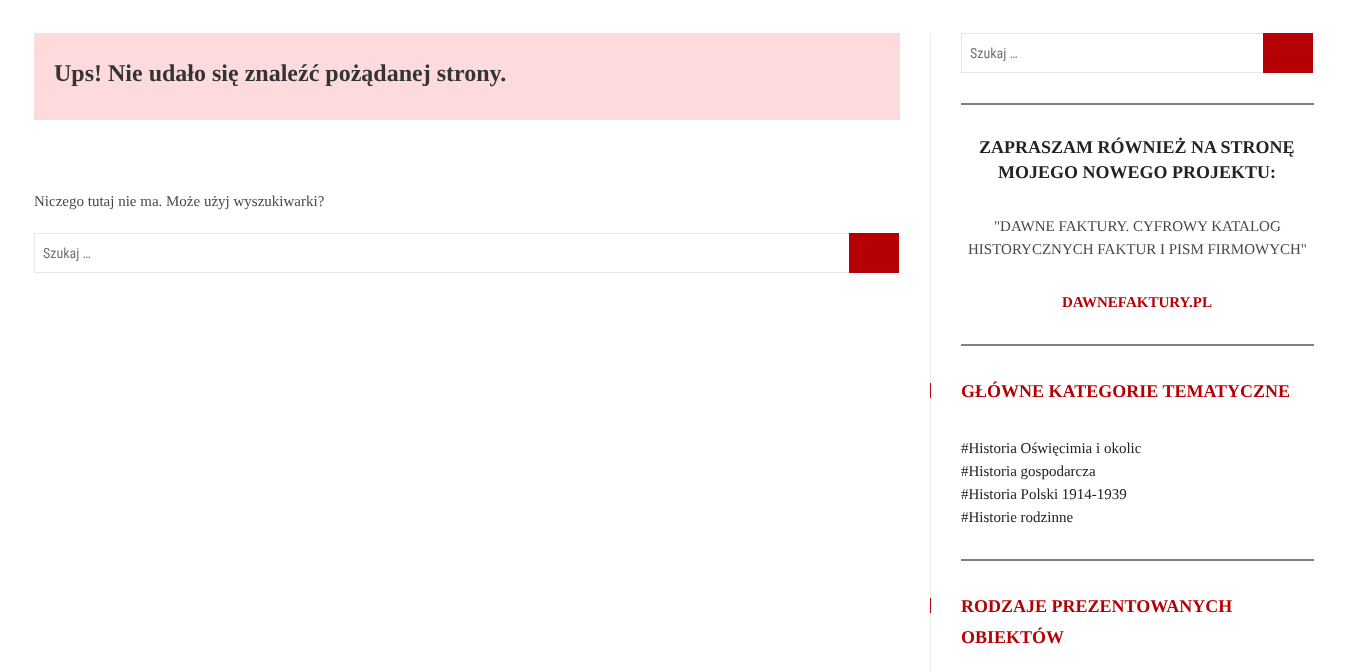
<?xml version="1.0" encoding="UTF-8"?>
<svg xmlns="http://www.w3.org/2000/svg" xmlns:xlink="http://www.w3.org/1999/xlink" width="1347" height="672">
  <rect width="100%" height="100%" fill="#ffffff" />
  <rect x="34" y="33" width="866" height="87" fill="#fddbdd" />
  <rect x="34.5" y="233.5" width="815" height="39" fill="none" stroke="#e6e6e6" />
  <rect x="849" y="233" width="50" height="40" fill="#b50006" />
  <rect x="930" y="33" width="1" height="639" fill="#eeeeee" />
  <rect x="961.5" y="33.5" width="302" height="39" fill="none" stroke="#e6e6e6" />
  <rect x="1263" y="33" width="50" height="40" fill="#b50006" />
  <rect x="961" y="103" width="353" height="2" fill="#808080" />
  <rect x="961" y="344" width="353" height="2" fill="#808080" />
  <rect x="930" y="383" width="1" height="15" fill="#b50006" />
  <rect x="961" y="559" width="353" height="2" fill="#808080" />
  <rect x="930" y="598" width="1" height="15" fill="#b50006" />
  <text x="54" y="81" style="font-family: Liberation Serif; font-size: 24px; font-weight: bold; fill: #343434">Ups! Nie udało się znaleźć pożądanej strony.</text>
  <text x="34" y="206" style="font-family: Liberation Serif; font-size: 15px; fill: #484848">Niczego tutaj nie ma. Może użyj wyszukiwarki?</text>
  <text x="43" y="258" style="font-family: Roboto Condensed; font-size: 14px; fill: #757575">Szukaj …</text>
  <text x="970" y="58" style="font-family: Roboto Condensed; font-size: 14px; fill: #757575">Szukaj …</text>
  <text x="979" y="153" style="font-family: Liberation Serif; font-size: 18px; font-weight: bold; fill: #222222">ZAPRASZAM RÓWNIEŻ NA STRONĘ</text>
  <text x="998" y="178" style="font-family: Liberation Serif; font-size: 18px; font-weight: bold; fill: #222222">MOJEGO NOWEGO PROJEKTU:</text>
  <text x="994" y="231" style="font-family: Liberation Serif; font-size: 15px; fill: #484848">"DAWNE FAKTURY. CYFROWY KATALOG</text>
  <text x="968" y="254" style="font-family: Liberation Serif; font-size: 15px; fill: #484848">HISTORYCZNYCH FAKTUR I PISM FIRMOWYCH"</text>
  <text x="1062" y="307" style="font-family: Liberation Serif; font-size: 15px; font-weight: bold; fill: #b50006">DAWNEFAKTURY.PL</text>
  <text x="961" y="397" style="font-family: Liberation Serif; font-size: 18px; font-weight: bold; fill: #b50006">GŁÓWNE KATEGORIE TEMATYCZNE</text>
  <text x="961" y="453" style="font-family: Liberation Serif; font-size: 15px; fill: #222222">#Historia Oświęcimia i okolic</text>
  <text x="961" y="476" style="font-family: Liberation Serif; font-size: 15px; fill: #222222">#Historia gospodarcza</text>
  <text x="961" y="499" style="font-family: Liberation Serif; font-size: 15px; fill: #222222">#Historia Polski 1914-1939</text>
  <text x="961" y="522" style="font-family: Liberation Serif; font-size: 15px; fill: #222222">#Historie rodzinne</text>
  <text x="961" y="612" style="font-family: Liberation Serif; font-size: 18px; font-weight: bold; fill: #b50006">RODZAJE PREZENTOWANYCH</text>
  <text x="961" y="643" style="font-family: Liberation Serif; font-size: 18px; font-weight: bold; fill: #b50006">OBIEKTÓW</text>
</svg>
